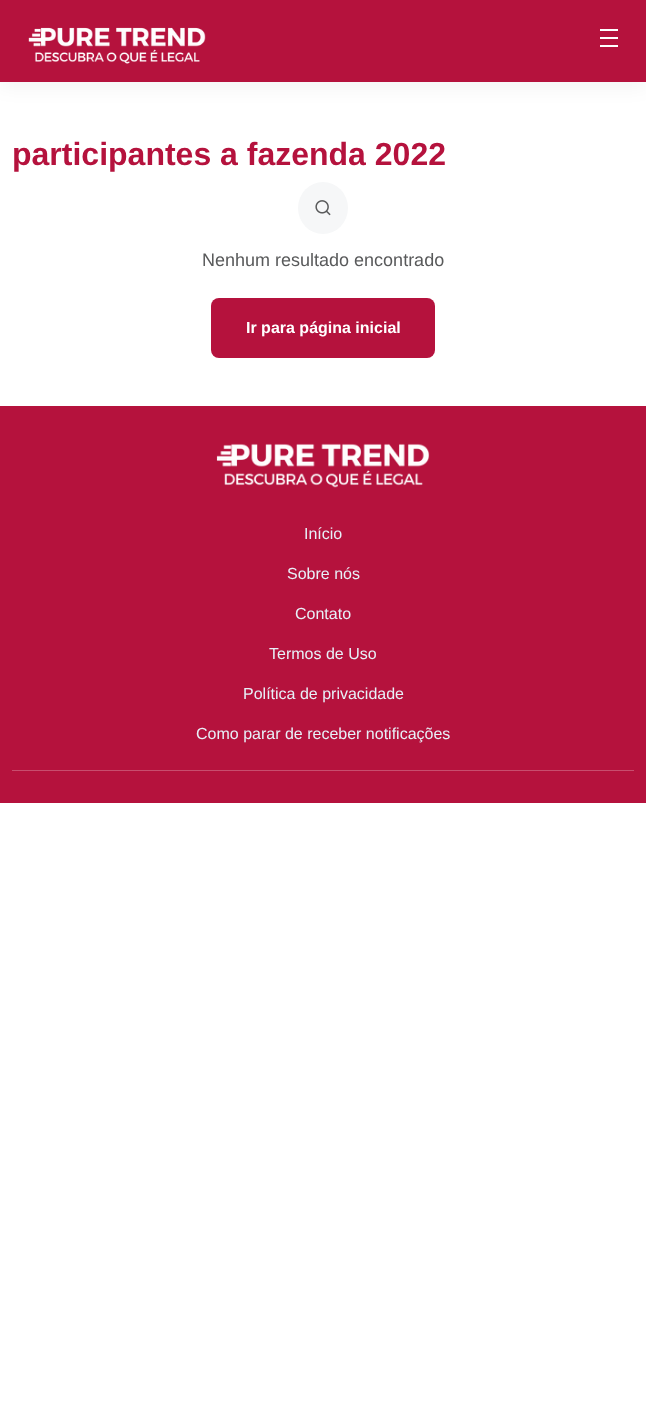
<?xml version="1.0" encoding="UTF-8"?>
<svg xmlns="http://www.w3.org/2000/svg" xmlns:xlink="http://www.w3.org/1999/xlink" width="646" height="1402">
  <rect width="100%" height="100%" fill="#ffffff" />
  <rect y="7" width="646" height="82" fill="#000000" fill-opacity="0.04" filter="blur(8.5px)" />
  <rect width="646" height="82" fill="#b5123d" />
  <image x="28" y="27" width="178" height="37" xlink:href="image1.png" />
  <rect x="600" y="29" width="18" height="2" fill="#ffffff" />
  <rect x="600" y="37" width="18" height="2" fill="#ffffff" />
  <rect x="600" y="45" width="18" height="2" fill="#ffffff" />
  <ellipse cx="323" cy="208" rx="25" ry="26" fill="#f6f7f8" />
  <image x="315" y="200" width="16" height="16" xlink:href="image2.png" />
  <rect x="211" y="298" width="224" height="60" rx="8" fill="#b5123d" />
  <rect y="406" width="646" height="397" fill="#b5123d" />
  <image x="216" y="443" width="214" height="45" xlink:href="image3.png" />
  <rect x="12" y="770" width="622" height="1" fill="#c84d6e" />
  <text x="12" y="165" style="font-family: Liberation Sans; font-size: 32px; font-weight: bold; fill: #b5123d">participantes a fazenda 2022</text>
  <text x="202" y="266" style="font-family: Liberation Sans; font-size: 18px; fill: #595a5b">Nenhum resultado encontrado</text>
  <text x="246" y="333" style="font-family: Liberation Sans; font-size: 16px; font-weight: bold; fill: #ffffff">Ir para página inicial</text>
  <text x="304" y="539" style="font-family: Liberation Sans; font-size: 16px; fill: #e7f0f8">Início</text>
  <text x="287" y="579" style="font-family: Liberation Sans; font-size: 16px; fill: #e7f0f8">Sobre nós</text>
  <text x="295" y="619" style="font-family: Liberation Sans; font-size: 16px; fill: #e7f0f8">Contato</text>
  <text x="269" y="659" style="font-family: Liberation Sans; font-size: 16px; fill: #e7f0f8">Termos de Uso</text>
  <text x="243" y="699" style="font-family: Liberation Sans; font-size: 16px; fill: #e7f0f8">Política de privacidade</text>
  <text x="196" y="739" style="font-family: Liberation Sans; font-size: 16px; fill: #e7f0f8">Como parar de receber notificações</text>
</svg>
